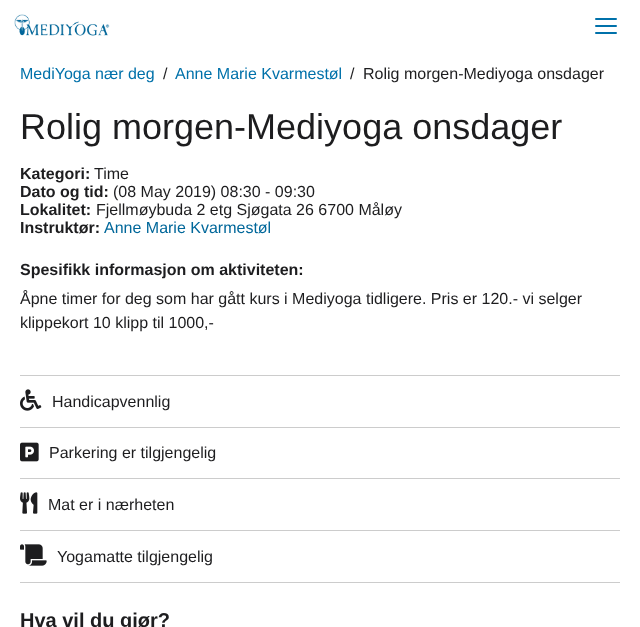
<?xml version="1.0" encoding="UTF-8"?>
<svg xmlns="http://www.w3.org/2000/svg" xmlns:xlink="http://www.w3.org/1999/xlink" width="640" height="627">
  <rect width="100%" height="100%" fill="#ffffff" />
  <image x="14" y="14" width="96" height="22" xlink:href="image1.png" />
  <path d="M 596 19 h 20 m -20 7 h 20 m -20 7 h 20" fill="none" stroke="#0071aa" stroke-width="2" stroke-linecap="round" />
  <rect x="20" y="375" width="600" height="1" fill="#cccccc" />
  <image x="20" y="389" width="22" height="22" xlink:href="image2.png" />
  <rect x="20" y="427" width="600" height="1" fill="#cccccc" />
  <image x="20" y="442" width="19" height="20" xlink:href="image3.png" />
  <rect x="20" y="478" width="600" height="1" fill="#cccccc" />
  <image x="20" y="492" width="18" height="22" xlink:href="image4.png" />
  <rect x="20" y="530" width="600" height="1" fill="#cccccc" />
  <rect x="20" y="582" width="600" height="1" fill="#cccccc" />
  <image x="20" y="544" width="27" height="22" xlink:href="image5.png" />
  <text x="20" y="79" style="font-family: Liberation Sans; font-size: 16px; fill: #0071aa">MediYoga nær deg</text>
  <text x="163" y="79" style="font-family: Liberation Sans; font-size: 16px; fill: #1d1d1f">/</text>
  <text x="175" y="79" style="font-family: Liberation Sans; font-size: 16px; fill: #0071aa">Anne Marie Kvarmestøl</text>
  <text x="350" y="79" style="font-family: Liberation Sans; font-size: 16px; fill: #1d1d1f">/</text>
  <text x="363" y="79" style="font-family: Liberation Sans; font-size: 16px; fill: #1d1d1f">Rolig morgen-Mediyoga onsdager</text>
  <text x="20" y="139" style="font-family: Liberation Sans; font-size: 36px; fill: #1d1d1f">Rolig morgen-Mediyoga onsdager</text>
  <text x="20" y="179" style="font-family: Liberation Sans; font-size: 16px; font-weight: bold; fill: #1d1d1f">Kategori:</text>
  <text x="94" y="179" style="font-family: Liberation Sans; font-size: 16px; fill: #1d1d1f">Time</text>
  <text x="20" y="197" style="font-family: Liberation Sans; font-size: 16px; font-weight: bold; fill: #1d1d1f">Dato og tid:</text>
  <text x="113" y="197" style="font-family: Liberation Sans; font-size: 16px; fill: #1d1d1f">(08 May 2019) 08:30 - 09:30</text>
  <text x="20" y="215" style="font-family: Liberation Sans; font-size: 16px; font-weight: bold; fill: #1d1d1f">Lokalitet:</text>
  <text x="96" y="215" style="font-family: Liberation Sans; font-size: 16px; fill: #1d1d1f">Fjellmøybuda 2 etg Sjøgata 26 6700 Måløy</text>
  <text x="20" y="233" style="font-family: Liberation Sans; font-size: 16px; font-weight: bold; fill: #1d1d1f">Instruktør:</text>
  <text x="104" y="233" style="font-family: Liberation Sans; font-size: 16px; fill: #00679a">Anne Marie Kvarmestøl</text>
  <text x="20" y="275" style="font-family: Liberation Sans; font-size: 16px; font-weight: bold; fill: #1d1d1f">Spesifikk informasjon om aktiviteten:</text>
  <text x="20" y="304" style="font-family: Liberation Sans; font-size: 16px; fill: #1d1d1f">Åpne timer for deg som har gått kurs i Mediyoga tidligere. Pris er 120.- vi selger</text>
  <text x="20" y="328" style="font-family: Liberation Sans; font-size: 16px; fill: #1d1d1f">klippekort 10 klipp til 1000,-</text>
  <text x="52" y="407" style="font-family: Liberation Sans; font-size: 16px; fill: #1d1d1f">Handicapvennlig</text>
  <text x="49" y="458" style="font-family: Liberation Sans; font-size: 16px; fill: #1d1d1f">Parkering er tilgjengelig</text>
  <text x="48" y="510" style="font-family: Liberation Sans; font-size: 16px; fill: #1d1d1f">Mat er i nærheten</text>
  <text x="57" y="562" style="font-family: Liberation Sans; font-size: 16px; fill: #1d1d1f">Yogamatte tilgjengelig</text>
  <text x="20" y="627" style="font-family: Liberation Sans; font-size: 20px; font-weight: bold; fill: #1d1d1f">Hva vil du gjør?</text>
</svg>
